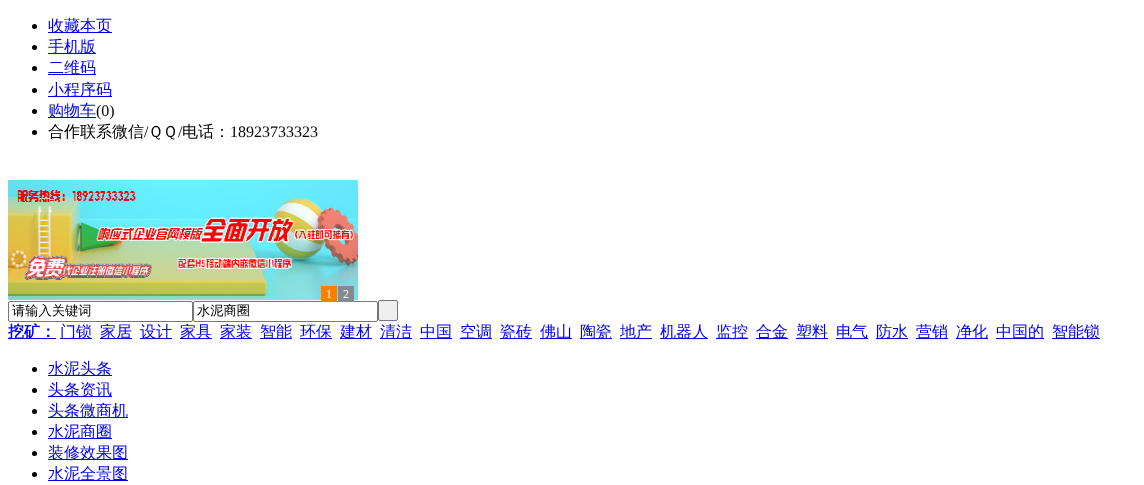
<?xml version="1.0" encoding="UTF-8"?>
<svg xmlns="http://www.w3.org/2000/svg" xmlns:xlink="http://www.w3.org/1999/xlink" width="1144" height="485">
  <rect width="100%" height="100%" fill="#ffffff" />
  <circle cx="34.5" cy="26.5" r="2.5" fill="#000000" />
  <rect x="48" y="32" width="64" height="1" fill="#0000ee" />
  <circle cx="34.5" cy="47.5" r="2.5" fill="#000000" />
  <rect x="48" y="53" width="48" height="1" fill="#0000ee" />
  <circle cx="34.5" cy="68.5" r="2.5" fill="#000000" />
  <rect x="48" y="74" width="48" height="1" fill="#0000ee" />
  <circle cx="34.5" cy="90.5" r="2.5" fill="#000000" />
  <rect x="48" y="96" width="64" height="1" fill="#0000ee" />
  <circle cx="34.5" cy="111.5" r="2.5" fill="#000000" />
  <rect x="48" y="117" width="48" height="1" fill="#0000ee" />
  <circle cx="34.5" cy="132.5" r="2.5" fill="#000000" />
  <image x="8" y="180" width="350" height="120" xlink:href="image1.png" />
  <rect x="193.5" y="301.5" width="184" height="20" rx="1.5" fill="none" stroke="#767676" />
  <rect x="321" y="286" width="16" height="16" fill="#ff7e00" />
  <rect x="338" y="286" width="16" height="16" fill="#838b90" />
  <rect x="8.5" y="301.5" width="184" height="20" rx="1.5" fill="none" stroke="#767676" />
  <rect x="378.5" y="300.5" width="19" height="20" rx="1.5" fill="#efefef" stroke="#767676" />
  <rect x="8" y="338" width="48" height="1" fill="#0000ee" />
  <rect x="60" y="338" width="32" height="1" fill="#0000ee" />
  <rect x="100" y="338" width="32" height="1" fill="#0000ee" />
  <rect x="140" y="338" width="32" height="1" fill="#0000ee" />
  <rect x="180" y="338" width="32" height="1" fill="#0000ee" />
  <rect x="220" y="338" width="32" height="1" fill="#0000ee" />
  <rect x="260" y="338" width="32" height="1" fill="#0000ee" />
  <rect x="300" y="338" width="32" height="1" fill="#0000ee" />
  <rect x="340" y="338" width="32" height="1" fill="#0000ee" />
  <rect x="380" y="338" width="32" height="1" fill="#0000ee" />
  <rect x="420" y="338" width="32" height="1" fill="#0000ee" />
  <rect x="460" y="338" width="32" height="1" fill="#0000ee" />
  <rect x="500" y="338" width="32" height="1" fill="#0000ee" />
  <rect x="540" y="338" width="32" height="1" fill="#0000ee" />
  <rect x="580" y="338" width="32" height="1" fill="#0000ee" />
  <rect x="620" y="338" width="32" height="1" fill="#0000ee" />
  <rect x="660" y="338" width="48" height="1" fill="#0000ee" />
  <rect x="716" y="338" width="32" height="1" fill="#0000ee" />
  <rect x="756" y="338" width="32" height="1" fill="#0000ee" />
  <rect x="796" y="338" width="32" height="1" fill="#0000ee" />
  <rect x="836" y="338" width="32" height="1" fill="#0000ee" />
  <rect x="876" y="338" width="32" height="1" fill="#0000ee" />
  <rect x="916" y="338" width="32" height="1" fill="#0000ee" />
  <rect x="956" y="338" width="32" height="1" fill="#0000ee" />
  <rect x="996" y="338" width="48" height="1" fill="#0000ee" />
  <rect x="1052" y="338" width="48" height="1" fill="#0000ee" />
  <circle cx="34.5" cy="369.5" r="2.5" fill="#000000" />
  <rect x="48" y="375" width="64" height="1" fill="#0000ee" />
  <circle cx="34.5" cy="390.5" r="2.5" fill="#000000" />
  <rect x="48" y="396" width="64" height="1" fill="#0000ee" />
  <circle cx="34.5" cy="411.5" r="2.5" fill="#000000" />
  <rect x="48" y="417" width="80" height="1" fill="#0000ee" />
  <circle cx="34.5" cy="432.5" r="2.5" fill="#000000" />
  <rect x="48" y="438" width="64" height="1" fill="#0000ee" />
  <circle cx="34.5" cy="453.5" r="2.5" fill="#000000" />
  <rect x="48" y="459" width="80" height="1" fill="#0000ee" />
  <circle cx="34.5" cy="474.5" r="2.5" fill="#000000" />
  <rect x="48" y="480" width="80" height="1" fill="#0000ee" />
  <text x="48" y="31" style="font-family: WenQuanYi Zen Hei; font-size: 16px; font-weight: 500; fill: #0000ee">收藏本页</text>
  <text x="48" y="52" style="font-family: WenQuanYi Zen Hei; font-size: 16px; font-weight: 500; fill: #0000ee">手机版</text>
  <text x="48" y="73" style="font-family: WenQuanYi Zen Hei; font-size: 16px; font-weight: 500; fill: #0000ee">二维码</text>
  <text x="48" y="95" style="font-family: WenQuanYi Zen Hei; font-size: 16px; font-weight: 500; fill: #0000ee">小程序码</text>
  <text x="48" y="116" style="font-family: WenQuanYi Zen Hei; font-size: 16px; font-weight: 500; fill: #0000ee">购物车</text>
  <text x="96" y="116" style="font-family: Liberation Serif; font-size: 16px; fill: #000000">(0)</text>
  <text x="48" y="137" style="font-family: WenQuanYi Zen Hei; font-size: 16px; font-weight: 500; fill: #000000">合作联系微信</text>
  <text x="144" y="137" style="font-family: Liberation Serif; font-size: 16px; fill: #000000">/</text>
  <text x="148" y="137" style="font-family: WenQuanYi Zen Hei; font-size: 16px; font-weight: 500; fill: #000000">ＱＱ</text>
  <text x="178" y="137" style="font-family: Liberation Serif; font-size: 16px; fill: #000000">/</text>
  <text x="182" y="137" style="font-family: WenQuanYi Zen Hei; font-size: 16px; font-weight: 500; fill: #000000">电话：</text>
  <text x="230" y="137" style="font-family: Liberation Serif; font-size: 16px; fill: #000000">18923733323</text>
  <text x="326" y="298" style="font-family: Liberation Serif; font-size: 12px; fill: #ffffff">1</text>
  <text x="343" y="298" style="font-family: Liberation Serif; font-size: 12px; fill: #ffffff">2</text>
  <text x="12" y="315" style="font-family: WenQuanYi Zen Hei; font-size: 13.25px; font-weight: 500; fill: #000000">请输入关键词</text>
  <text x="197" y="315" style="font-family: WenQuanYi Zen Hei; font-size: 13.25px; font-weight: 500; fill: #000000">水泥商圈</text>
  <text x="8" y="337" style="font-family: WenQuanYi Zen Hei; font-size: 16px; font-weight: bold; fill: #0000ee">挖矿：</text>
  <text x="60" y="337" style="font-family: WenQuanYi Zen Hei; font-size: 16px; font-weight: 500; fill: #0000ee">门锁</text>
  <text x="100" y="337" style="font-family: WenQuanYi Zen Hei; font-size: 16px; font-weight: 500; fill: #0000ee">家居</text>
  <text x="140" y="337" style="font-family: WenQuanYi Zen Hei; font-size: 16px; font-weight: 500; fill: #0000ee">设计</text>
  <text x="180" y="337" style="font-family: WenQuanYi Zen Hei; font-size: 16px; font-weight: 500; fill: #0000ee">家具</text>
  <text x="220" y="337" style="font-family: WenQuanYi Zen Hei; font-size: 16px; font-weight: 500; fill: #0000ee">家装</text>
  <text x="260" y="337" style="font-family: WenQuanYi Zen Hei; font-size: 16px; font-weight: 500; fill: #0000ee">智能</text>
  <text x="300" y="337" style="font-family: WenQuanYi Zen Hei; font-size: 16px; font-weight: 500; fill: #0000ee">环保</text>
  <text x="340" y="337" style="font-family: WenQuanYi Zen Hei; font-size: 16px; font-weight: 500; fill: #0000ee">建材</text>
  <text x="380" y="337" style="font-family: WenQuanYi Zen Hei; font-size: 16px; font-weight: 500; fill: #0000ee">清洁</text>
  <text x="420" y="337" style="font-family: WenQuanYi Zen Hei; font-size: 16px; font-weight: 500; fill: #0000ee">中国</text>
  <text x="460" y="337" style="font-family: WenQuanYi Zen Hei; font-size: 16px; font-weight: 500; fill: #0000ee">空调</text>
  <text x="500" y="337" style="font-family: WenQuanYi Zen Hei; font-size: 16px; font-weight: 500; fill: #0000ee">瓷砖</text>
  <text x="540" y="337" style="font-family: WenQuanYi Zen Hei; font-size: 16px; font-weight: 500; fill: #0000ee">佛山</text>
  <text x="580" y="337" style="font-family: WenQuanYi Zen Hei; font-size: 16px; font-weight: 500; fill: #0000ee">陶瓷</text>
  <text x="620" y="337" style="font-family: WenQuanYi Zen Hei; font-size: 16px; font-weight: 500; fill: #0000ee">地产</text>
  <text x="660" y="337" style="font-family: WenQuanYi Zen Hei; font-size: 16px; font-weight: 500; fill: #0000ee">机器人</text>
  <text x="716" y="337" style="font-family: WenQuanYi Zen Hei; font-size: 16px; font-weight: 500; fill: #0000ee">监控</text>
  <text x="756" y="337" style="font-family: WenQuanYi Zen Hei; font-size: 16px; font-weight: 500; fill: #0000ee">合金</text>
  <text x="796" y="337" style="font-family: WenQuanYi Zen Hei; font-size: 16px; font-weight: 500; fill: #0000ee">塑料</text>
  <text x="836" y="337" style="font-family: WenQuanYi Zen Hei; font-size: 16px; font-weight: 500; fill: #0000ee">电气</text>
  <text x="876" y="337" style="font-family: WenQuanYi Zen Hei; font-size: 16px; font-weight: 500; fill: #0000ee">防水</text>
  <text x="916" y="337" style="font-family: WenQuanYi Zen Hei; font-size: 16px; font-weight: 500; fill: #0000ee">营销</text>
  <text x="956" y="337" style="font-family: WenQuanYi Zen Hei; font-size: 16px; font-weight: 500; fill: #0000ee">净化</text>
  <text x="996" y="337" style="font-family: WenQuanYi Zen Hei; font-size: 16px; font-weight: 500; fill: #0000ee">中国的</text>
  <text x="1052" y="337" style="font-family: WenQuanYi Zen Hei; font-size: 16px; font-weight: 500; fill: #0000ee">智能锁</text>
  <text x="48" y="374" style="font-family: WenQuanYi Zen Hei; font-size: 16px; font-weight: 500; fill: #0000ee">水泥头条</text>
  <text x="48" y="395" style="font-family: WenQuanYi Zen Hei; font-size: 16px; font-weight: 500; fill: #0000ee">头条资讯</text>
  <text x="48" y="416" style="font-family: WenQuanYi Zen Hei; font-size: 16px; font-weight: 500; fill: #0000ee">头条微商机</text>
  <text x="48" y="437" style="font-family: WenQuanYi Zen Hei; font-size: 16px; font-weight: 500; fill: #0000ee">水泥商圈</text>
  <text x="48" y="458" style="font-family: WenQuanYi Zen Hei; font-size: 16px; font-weight: 500; fill: #0000ee">装修效果图</text>
  <text x="48" y="479" style="font-family: WenQuanYi Zen Hei; font-size: 16px; font-weight: 500; fill: #0000ee">水泥全景图</text>
</svg>
